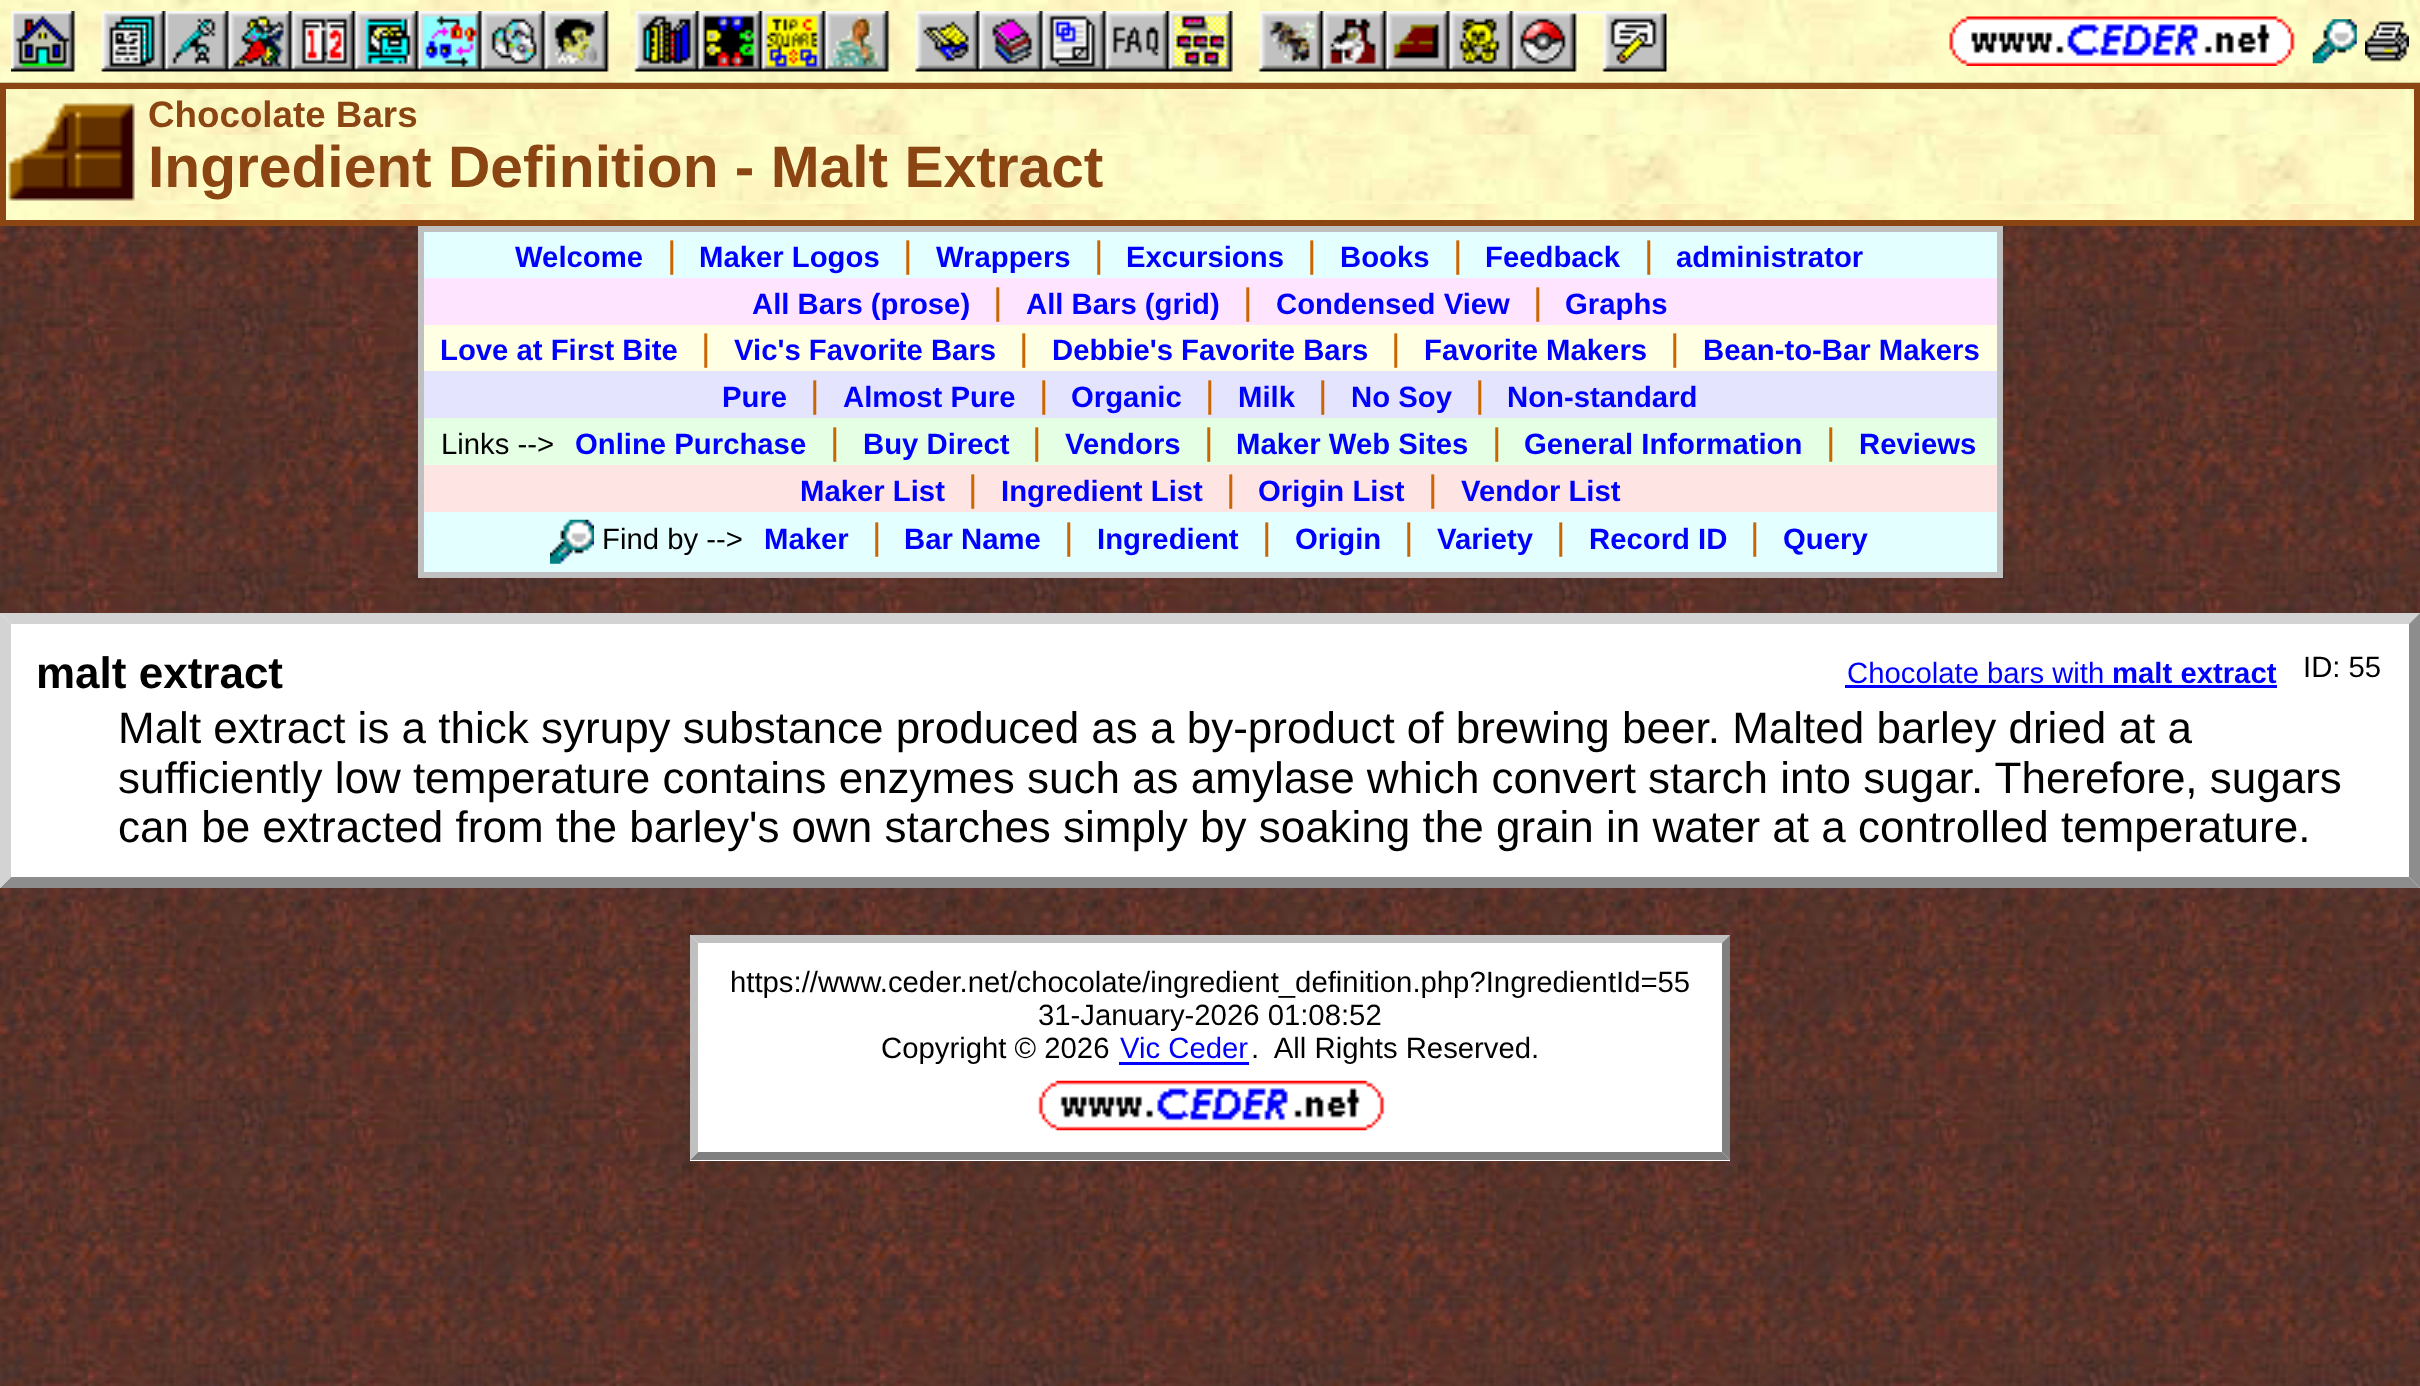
<?xml version="1.0" encoding="UTF-8"?>
<svg xmlns="http://www.w3.org/2000/svg" xmlns:xlink="http://www.w3.org/1999/xlink" width="2420" height="1386">
  <rect width="100%" height="100%" fill="#ffffff" />
  <image x="0" y="82" width="2420" height="1304" xlink:href="image1.png" />
  <image x="0" y="0" width="2420" height="83" xlink:href="image2.png" />
  <image x="1949" y="16" width="346" height="50" xlink:href="image3.png" />
  <image x="2312" y="19" width="45" height="45" xlink:href="image4.png" />
  <image x="2365" y="21" width="44" height="41" xlink:href="image5.png" />
  <image x="11" y="11" width="1656" height="61" xlink:href="image6.png" />
  <image x="0" y="82" width="2420" height="138" xlink:href="image7.png" />
  <rect x="3" y="86" width="2414" height="137" fill="none" stroke="#8b4513" stroke-width="6" />
  <image x="8" y="103" width="127" height="98" xlink:href="image8.png" />
  <rect x="149" y="135" width="2255" height="69" fill="#fff9cf" />
  <image x="148" y="134" width="2256" height="70" xlink:href="image9.png" />
  <rect x="418" y="226" width="1584" height="6" fill="#c0c0c0" />
  <rect x="1997" y="226" width="6" height="352" fill="#c0c0c0" />
  <rect x="418" y="572" width="1584" height="6" fill="#c0c0c0" />
  <rect x="418" y="226" width="6" height="352" fill="#c0c0c0" />
  <rect x="424" y="232" width="1573" height="46" fill="#e4ffff" />
  <rect x="424" y="278" width="1573" height="47" fill="#ffe4ff" />
  <rect x="424" y="325" width="1573" height="46" fill="#ffffe4" />
  <rect x="424" y="371" width="1573" height="47" fill="#e4e4ff" />
  <rect x="424" y="418" width="1573" height="47" fill="#e4ffe4" />
  <rect x="424" y="465" width="1573" height="47" fill="#ffe4e4" />
  <rect x="424" y="512" width="1573" height="60" fill="#e4ffff" />
  <image x="550" y="519" width="44" height="45" xlink:href="image10.png" />
  <rect y="613" width="2420" height="275" fill="#ffffff" />
  <path d="M 0 613 h 2420 l -11 11 h -2398 z" fill="#d3d3d3" />
  <path d="M 2420 613 v 275 l -11 -11 v -253 z" fill="#8d8d8d" />
  <path d="M 2420 888 h -2420 l 11 -11 h 2398 z" fill="#8d8d8d" />
  <path d="M 0 888 v -275 l 11 11 v 253 z" fill="#d3d3d3" />
  <rect x="1845" y="685" width="432" height="3" fill="#0000ff" />
  <rect x="690" y="935" width="1040" height="226" fill="#ffffff" />
  <path d="M 690 935 h 1040 l -8 8 h -1024 z" fill="#c0c0c0" />
  <path d="M 1730 935 v 225 l -8 -8 v -209 z" fill="#808080" />
  <path d="M 1730 1160 h -1040 l 8 -8 h 1024 z" fill="#808080" />
  <path d="M 690 1160 v -225 l 8 8 v 209 z" fill="#c0c0c0" />
  <rect x="1119" y="1062" width="130" height="3" fill="#0000ff" />
  <image x="1038" y="1080" width="347" height="51" xlink:href="image11.png" />
  <text x="148" y="127" style="font-family: Liberation Sans; font-size: 36.75px; font-weight: bold; fill: #8b4513">Chocolate Bars</text>
  <text x="148" y="187" style="font-family: Liberation Sans; font-size: 58.7px; font-weight: bold; fill: #8b4513">Ingredient Definition - Malt Extract</text>
  <text x="515" y="267" style="font-family: Liberation Sans; font-size: 29.3px; font-weight: bold; fill: #0000ff">Welcome</text>
  <text x="667" y="267" style="font-family: Liberation Sans; font-size: 36.75px; fill: #cc6600">|</text>
  <text x="699" y="267" style="font-family: Liberation Sans; font-size: 29.3px; font-weight: bold; fill: #0000ff">Maker Logos</text>
  <text x="903" y="267" style="font-family: Liberation Sans; font-size: 36.75px; fill: #cc6600">|</text>
  <text x="936" y="267" style="font-family: Liberation Sans; font-size: 29.3px; font-weight: bold; fill: #0000ff">Wrappers</text>
  <text x="1094" y="267" style="font-family: Liberation Sans; font-size: 36.75px; fill: #cc6600">|</text>
  <text x="1126" y="267" style="font-family: Liberation Sans; font-size: 29.3px; font-weight: bold; fill: #0000ff">Excursions</text>
  <text x="1307" y="267" style="font-family: Liberation Sans; font-size: 36.75px; fill: #cc6600">|</text>
  <text x="1340" y="267" style="font-family: Liberation Sans; font-size: 29.3px; font-weight: bold; fill: #0000ff">Books</text>
  <text x="1453" y="267" style="font-family: Liberation Sans; font-size: 36.75px; fill: #cc6600">|</text>
  <text x="1485" y="267" style="font-family: Liberation Sans; font-size: 29.3px; font-weight: bold; fill: #0000ff">Feedback</text>
  <text x="1644" y="267" style="font-family: Liberation Sans; font-size: 36.75px; fill: #cc6600">|</text>
  <text x="1676" y="267" style="font-family: Liberation Sans; font-size: 29.3px; font-weight: bold; fill: #0000ff">administrator</text>
  <text x="752" y="314" style="font-family: Liberation Sans; font-size: 29.3px; font-weight: bold; fill: #0000ff">All Bars (prose)</text>
  <text x="993" y="314" style="font-family: Liberation Sans; font-size: 36.75px; fill: #cc6600">|</text>
  <text x="1026" y="314" style="font-family: Liberation Sans; font-size: 29.3px; font-weight: bold; fill: #0000ff">All Bars (grid)</text>
  <text x="1243" y="314" style="font-family: Liberation Sans; font-size: 36.75px; fill: #cc6600">|</text>
  <text x="1276" y="314" style="font-family: Liberation Sans; font-size: 29.3px; font-weight: bold; fill: #0000ff">Condensed View</text>
  <text x="1533" y="314" style="font-family: Liberation Sans; font-size: 36.75px; fill: #cc6600">|</text>
  <text x="1565" y="314" style="font-family: Liberation Sans; font-size: 29.3px; font-weight: bold; fill: #0000ff">Graphs</text>
  <text x="440" y="360" style="font-family: Liberation Sans; font-size: 29.3px; font-weight: bold; fill: #0000ff">Love at First Bite</text>
  <text x="701" y="360" style="font-family: Liberation Sans; font-size: 36.75px; fill: #cc6600">|</text>
  <text x="734" y="360" style="font-family: Liberation Sans; font-size: 29.3px; font-weight: bold; fill: #0000ff">Vic's Favorite Bars</text>
  <text x="1019" y="360" style="font-family: Liberation Sans; font-size: 36.75px; fill: #cc6600">|</text>
  <text x="1052" y="360" style="font-family: Liberation Sans; font-size: 29.3px; font-weight: bold; fill: #0000ff">Debbie's Favorite Bars</text>
  <text x="1391" y="360" style="font-family: Liberation Sans; font-size: 36.75px; fill: #cc6600">|</text>
  <text x="1424" y="360" style="font-family: Liberation Sans; font-size: 29.3px; font-weight: bold; fill: #0000ff">Favorite Makers</text>
  <text x="1670" y="360" style="font-family: Liberation Sans; font-size: 36.75px; fill: #cc6600">|</text>
  <text x="1703" y="360" style="font-family: Liberation Sans; font-size: 29.3px; font-weight: bold; fill: #0000ff">Bean-to-Bar Makers</text>
  <text x="722" y="407" style="font-family: Liberation Sans; font-size: 29.3px; font-weight: bold; fill: #0000ff">Pure</text>
  <text x="810" y="407" style="font-family: Liberation Sans; font-size: 36.75px; fill: #cc6600">|</text>
  <text x="843" y="407" style="font-family: Liberation Sans; font-size: 29.3px; font-weight: bold; fill: #0000ff">Almost Pure</text>
  <text x="1039" y="407" style="font-family: Liberation Sans; font-size: 36.75px; fill: #cc6600">|</text>
  <text x="1071" y="407" style="font-family: Liberation Sans; font-size: 29.3px; font-weight: bold; fill: #0000ff">Organic</text>
  <text x="1205" y="407" style="font-family: Liberation Sans; font-size: 36.75px; fill: #cc6600">|</text>
  <text x="1238" y="407" style="font-family: Liberation Sans; font-size: 29.3px; font-weight: bold; fill: #0000ff">Milk</text>
  <text x="1318" y="407" style="font-family: Liberation Sans; font-size: 36.75px; fill: #cc6600">|</text>
  <text x="1351" y="407" style="font-family: Liberation Sans; font-size: 29.3px; font-weight: bold; fill: #0000ff">No Soy</text>
  <text x="1475" y="407" style="font-family: Liberation Sans; font-size: 36.75px; fill: #cc6600">|</text>
  <text x="1507" y="407" style="font-family: Liberation Sans; font-size: 29.3px; font-weight: bold; fill: #0000ff">Non-standard</text>
  <text x="441" y="454" style="font-family: Liberation Sans; font-size: 29.3px; fill: #000000">Links --&gt;</text>
  <text x="575" y="454" style="font-family: Liberation Sans; font-size: 29.3px; font-weight: bold; fill: #0000ff">Online Purchase</text>
  <text x="830" y="454" style="font-family: Liberation Sans; font-size: 36.75px; fill: #cc6600">|</text>
  <text x="863" y="454" style="font-family: Liberation Sans; font-size: 29.3px; font-weight: bold; fill: #0000ff">Buy Direct</text>
  <text x="1032" y="454" style="font-family: Liberation Sans; font-size: 36.75px; fill: #cc6600">|</text>
  <text x="1065" y="454" style="font-family: Liberation Sans; font-size: 29.3px; font-weight: bold; fill: #0000ff">Vendors</text>
  <text x="1204" y="454" style="font-family: Liberation Sans; font-size: 36.75px; fill: #cc6600">|</text>
  <text x="1236" y="454" style="font-family: Liberation Sans; font-size: 29.3px; font-weight: bold; fill: #0000ff">Maker Web Sites</text>
  <text x="1492" y="454" style="font-family: Liberation Sans; font-size: 36.75px; fill: #cc6600">|</text>
  <text x="1524" y="454" style="font-family: Liberation Sans; font-size: 29.3px; font-weight: bold; fill: #0000ff">General Information</text>
  <text x="1826" y="454" style="font-family: Liberation Sans; font-size: 36.75px; fill: #cc6600">|</text>
  <text x="1859" y="454" style="font-family: Liberation Sans; font-size: 29.3px; font-weight: bold; fill: #0000ff">Reviews</text>
  <text x="800" y="501" style="font-family: Liberation Sans; font-size: 29.3px; font-weight: bold; fill: #0000ff">Maker List</text>
  <text x="968" y="501" style="font-family: Liberation Sans; font-size: 36.75px; fill: #cc6600">|</text>
  <text x="1001" y="501" style="font-family: Liberation Sans; font-size: 29.3px; font-weight: bold; fill: #0000ff">Ingredient List</text>
  <text x="1226" y="501" style="font-family: Liberation Sans; font-size: 36.75px; fill: #cc6600">|</text>
  <text x="1258" y="501" style="font-family: Liberation Sans; font-size: 29.3px; font-weight: bold; fill: #0000ff">Origin List</text>
  <text x="1428" y="501" style="font-family: Liberation Sans; font-size: 36.75px; fill: #cc6600">|</text>
  <text x="1461" y="501" style="font-family: Liberation Sans; font-size: 29.3px; font-weight: bold; fill: #0000ff">Vendor List</text>
  <text x="602" y="549" style="font-family: Liberation Sans; font-size: 29.3px; fill: #000000">Find by --&gt;</text>
  <text x="764" y="549" style="font-family: Liberation Sans; font-size: 29.3px; font-weight: bold; fill: #0000ff">Maker</text>
  <text x="872" y="549" style="font-family: Liberation Sans; font-size: 36.75px; fill: #cc6600">|</text>
  <text x="904" y="549" style="font-family: Liberation Sans; font-size: 29.3px; font-weight: bold; fill: #0000ff">Bar Name</text>
  <text x="1064" y="549" style="font-family: Liberation Sans; font-size: 36.75px; fill: #cc6600">|</text>
  <text x="1097" y="549" style="font-family: Liberation Sans; font-size: 29.3px; font-weight: bold; fill: #0000ff">Ingredient</text>
  <text x="1262" y="549" style="font-family: Liberation Sans; font-size: 36.75px; fill: #cc6600">|</text>
  <text x="1295" y="549" style="font-family: Liberation Sans; font-size: 29.3px; font-weight: bold; fill: #0000ff">Origin</text>
  <text x="1404" y="549" style="font-family: Liberation Sans; font-size: 36.75px; fill: #cc6600">|</text>
  <text x="1437" y="549" style="font-family: Liberation Sans; font-size: 29.3px; font-weight: bold; fill: #0000ff">Variety</text>
  <text x="1556" y="549" style="font-family: Liberation Sans; font-size: 36.75px; fill: #cc6600">|</text>
  <text x="1589" y="549" style="font-family: Liberation Sans; font-size: 29.3px; font-weight: bold; fill: #0000ff">Record ID</text>
  <text x="1750" y="549" style="font-family: Liberation Sans; font-size: 36.75px; fill: #cc6600">|</text>
  <text x="1783" y="549" style="font-family: Liberation Sans; font-size: 29.3px; font-weight: bold; fill: #0000ff">Query</text>
  <text x="36" y="688" style="font-family: Liberation Sans; font-size: 44px; font-weight: bold; fill: #000000">malt extract</text>
  <text x="1847" y="683" style="font-family: Liberation Sans; font-size: 29.3px; fill: #0000ff">Chocolate bars with</text>
  <text x="2112" y="683" style="font-family: Liberation Sans; font-size: 29.3px; font-weight: bold; fill: #0000ff">malt extract</text>
  <text x="2303" y="677" style="font-family: Liberation Sans; font-size: 29.3px; fill: #000000">ID: 55</text>
  <text x="118" y="743" style="font-family: Liberation Sans; font-size: 44px; fill: #000000">Malt extract is a thick syrupy substance produced as a by-product of brewing beer. Malted barley dried at a</text>
  <text x="118" y="793" style="font-family: Liberation Sans; font-size: 44px; fill: #000000">sufficiently low temperature contains enzymes such as amylase which convert starch into sugar. Therefore, sugars</text>
  <text x="118" y="842" style="font-family: Liberation Sans; font-size: 44px; fill: #000000">can be extracted from the barley's own starches simply by soaking the grain in water at a controlled temperature.</text>
  <text x="730" y="992" style="font-family: Liberation Sans; font-size: 29.3px; fill: #000000">https://www.ceder.net/chocolate/ingredient_definition.php?IngredientId=55</text>
  <text x="1038" y="1025" style="font-family: Liberation Sans; font-size: 29.3px; fill: #000000">31-January-2026 01:08:52</text>
  <text x="881" y="1058" style="font-family: Liberation Sans; font-size: 29.3px; fill: #000000">Copyright © 2026</text>
  <text x="1120" y="1058" style="font-family: Liberation Sans; font-size: 29.3px; fill: #0000ff">Vic Ceder</text>
  <text x="1251" y="1058" style="font-family: Liberation Sans; font-size: 29.3px; fill: #000000" xml:space="preserve">.  All Rights Reserved.</text>
</svg>
